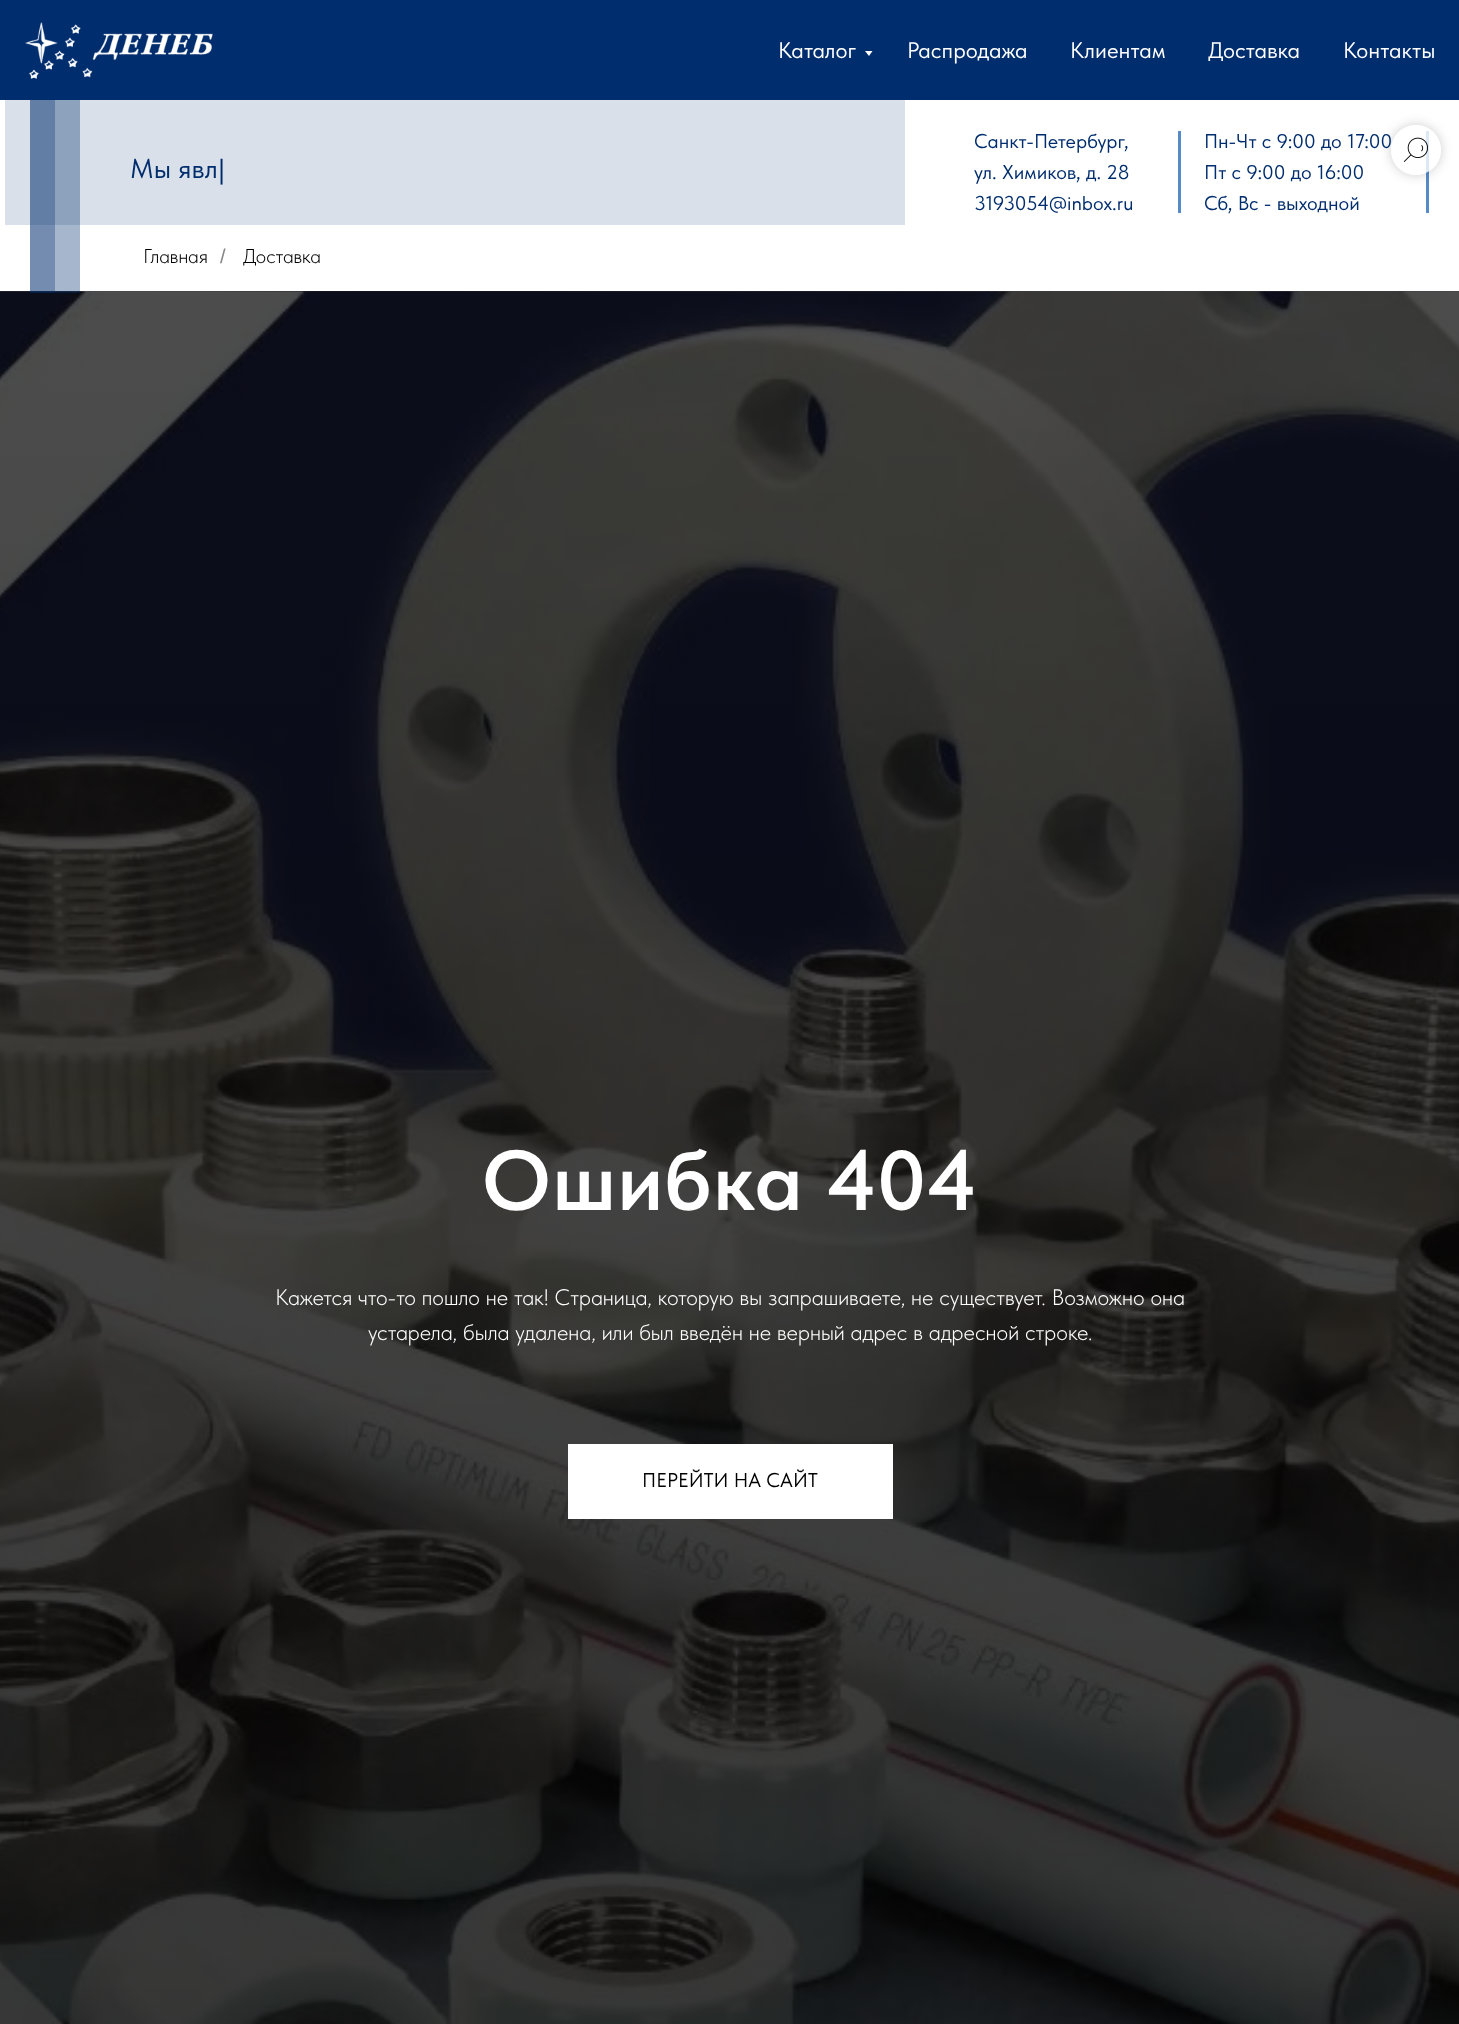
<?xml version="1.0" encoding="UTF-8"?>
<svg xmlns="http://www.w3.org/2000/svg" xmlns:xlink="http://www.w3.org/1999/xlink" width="1459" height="2024">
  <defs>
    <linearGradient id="g1" gradientUnits="userSpaceOnUse" x1="730" y1="291" x2="730" y2="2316"><stop offset="0" stop-color="#000000" stop-opacity="0.7" /><stop offset="1" stop-color="#000000" stop-opacity="0.8" /></linearGradient>
    <clipPath id="clip1"><path d="M 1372 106 h 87 v 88 h -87 z m 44 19 c 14 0 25 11 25 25 c 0 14 -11 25 -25 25 c -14 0 -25 -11 -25 -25 c 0 -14 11 -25 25 -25 z" clip-rule="evenodd" /></clipPath>
  </defs>
  <rect width="100%" height="100%" fill="#ffffff" />
  <rect width="1459" height="100" fill="#002d6d" />
  <image x="25" y="22" width="188" height="57" xlink:href="image1.png" />
  <path d="M 865 51 h 7.5 l -3.5 5 z" fill="#ffffff" />
  <rect x="5" y="100" width="900" height="125" fill="#d9e0e9" />
  <image x="0" y="291" width="1459" height="1" xlink:href="image3.png" />
  <image x="0" y="291" width="1459" height="1733" xlink:href="image4.png" />
  <rect y="291" width="1459" height="1733" fill="url(#g1)" />
  <rect x="30" y="100" width="25" height="193" fill="#002d6d" fill-opacity="0.55" />
  <rect x="55" y="100" width="25" height="193" fill="#002d6d" fill-opacity="0.35" />
  <rect x="1178" y="131" width="3" height="82" fill="#548cca" />
  <rect x="1426" y="131" width="3" height="82" fill="#548cca" />
  <g clip-path="url(#clip1)">
    <rect x="1391" y="125" width="50" height="50" rx="25" fill="#000000" fill-opacity="0.2" filter="blur(6px)" />
  </g>
  <circle cx="1416" cy="150" r="25" fill="#ffffff" fill-opacity="0.8" />
  <image x="1403" y="137" width="25" height="25" xlink:href="image2.png" />
  <rect x="568" y="1444" width="325" height="75" fill="#ffffff" />
  <text x="778" y="58" style="font-family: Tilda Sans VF; font-size: 22.5px; fill: #ffffff">Каталог</text>
  <text x="907" y="58" style="font-family: Tilda Sans VF; font-size: 22.5px; fill: #ffffff">Распродажа</text>
  <text x="1070" y="58" style="font-family: Tilda Sans VF; font-size: 22.5px; fill: #ffffff">Клиентам</text>
  <text x="1208" y="58" style="font-family: Tilda Sans VF; font-size: 22.5px; fill: #ffffff">Доставка</text>
  <text x="1343" y="58" style="font-family: Tilda Sans VF; font-size: 22.5px; fill: #ffffff">Контакты</text>
  <text x="130" y="178" style="font-family: Tilda Sans VF; font-size: 27.5px; fill: #002d6d">Мы явл|</text>
  <text x="974" y="148" style="font-family: Tilda Sans VF; font-size: 20px; fill: #002d6d">Санкт-Петербург,</text>
  <text x="974" y="179" style="font-family: Tilda Sans VF; font-size: 20px; fill: #002d6d">ул. Химиков, д. 28</text>
  <text x="974" y="210" style="font-family: Tilda Sans VF; font-size: 20px; fill: #002d6d">3193054@inbox.ru</text>
  <text x="1204" y="148" style="font-family: Tilda Sans VF; font-size: 20px; fill: #002d6d">Пн-Чт с 9:00 до 17:00</text>
  <text x="1204" y="179" style="font-family: Tilda Sans VF; font-size: 20px; fill: #002d6d">Пт с 9:00 до 16:00</text>
  <text x="1204" y="210" style="font-family: Tilda Sans VF; font-size: 20px; fill: #002d6d">Сб, Вс - выходной</text>
  <text x="143" y="263" style="font-family: Tilda Sans VF; font-size: 20px; font-weight: 300; fill: #000000">Главная</text>
  <text x="220" y="263" style="font-family: Liberation Sans; font-size: 20px; fill: #858585">/</text>
  <text x="243" y="263" style="font-family: Tilda Sans VF; font-size: 20px; font-weight: 300; fill: #000000">Доставка</text>
  <text x="482" y="1210" style="font-family: Tilda Sans VF; font-size: 85px; font-weight: 600; letter-spacing: 1.25px; fill: #ffffff">Ошибка 404</text>
  <text x="275" y="1305" style="font-family: Tilda Sans VF; font-size: 22.5px; font-weight: 300; fill: #ffffff">Кажется что-то пошло не так! Страница, которую вы запрашиваете, не существует. Возможно она</text>
  <text x="368" y="1340" style="font-family: Tilda Sans VF; font-size: 22.5px; font-weight: 300; fill: #ffffff">устарела, была удалена, или был введён не верный адрес в адресной строке.</text>
  <text x="642" y="1487" style="font-family: Tilda Sans VF; font-size: 20px; fill: #000000">ПЕРЕЙТИ НА САЙТ</text>
</svg>
